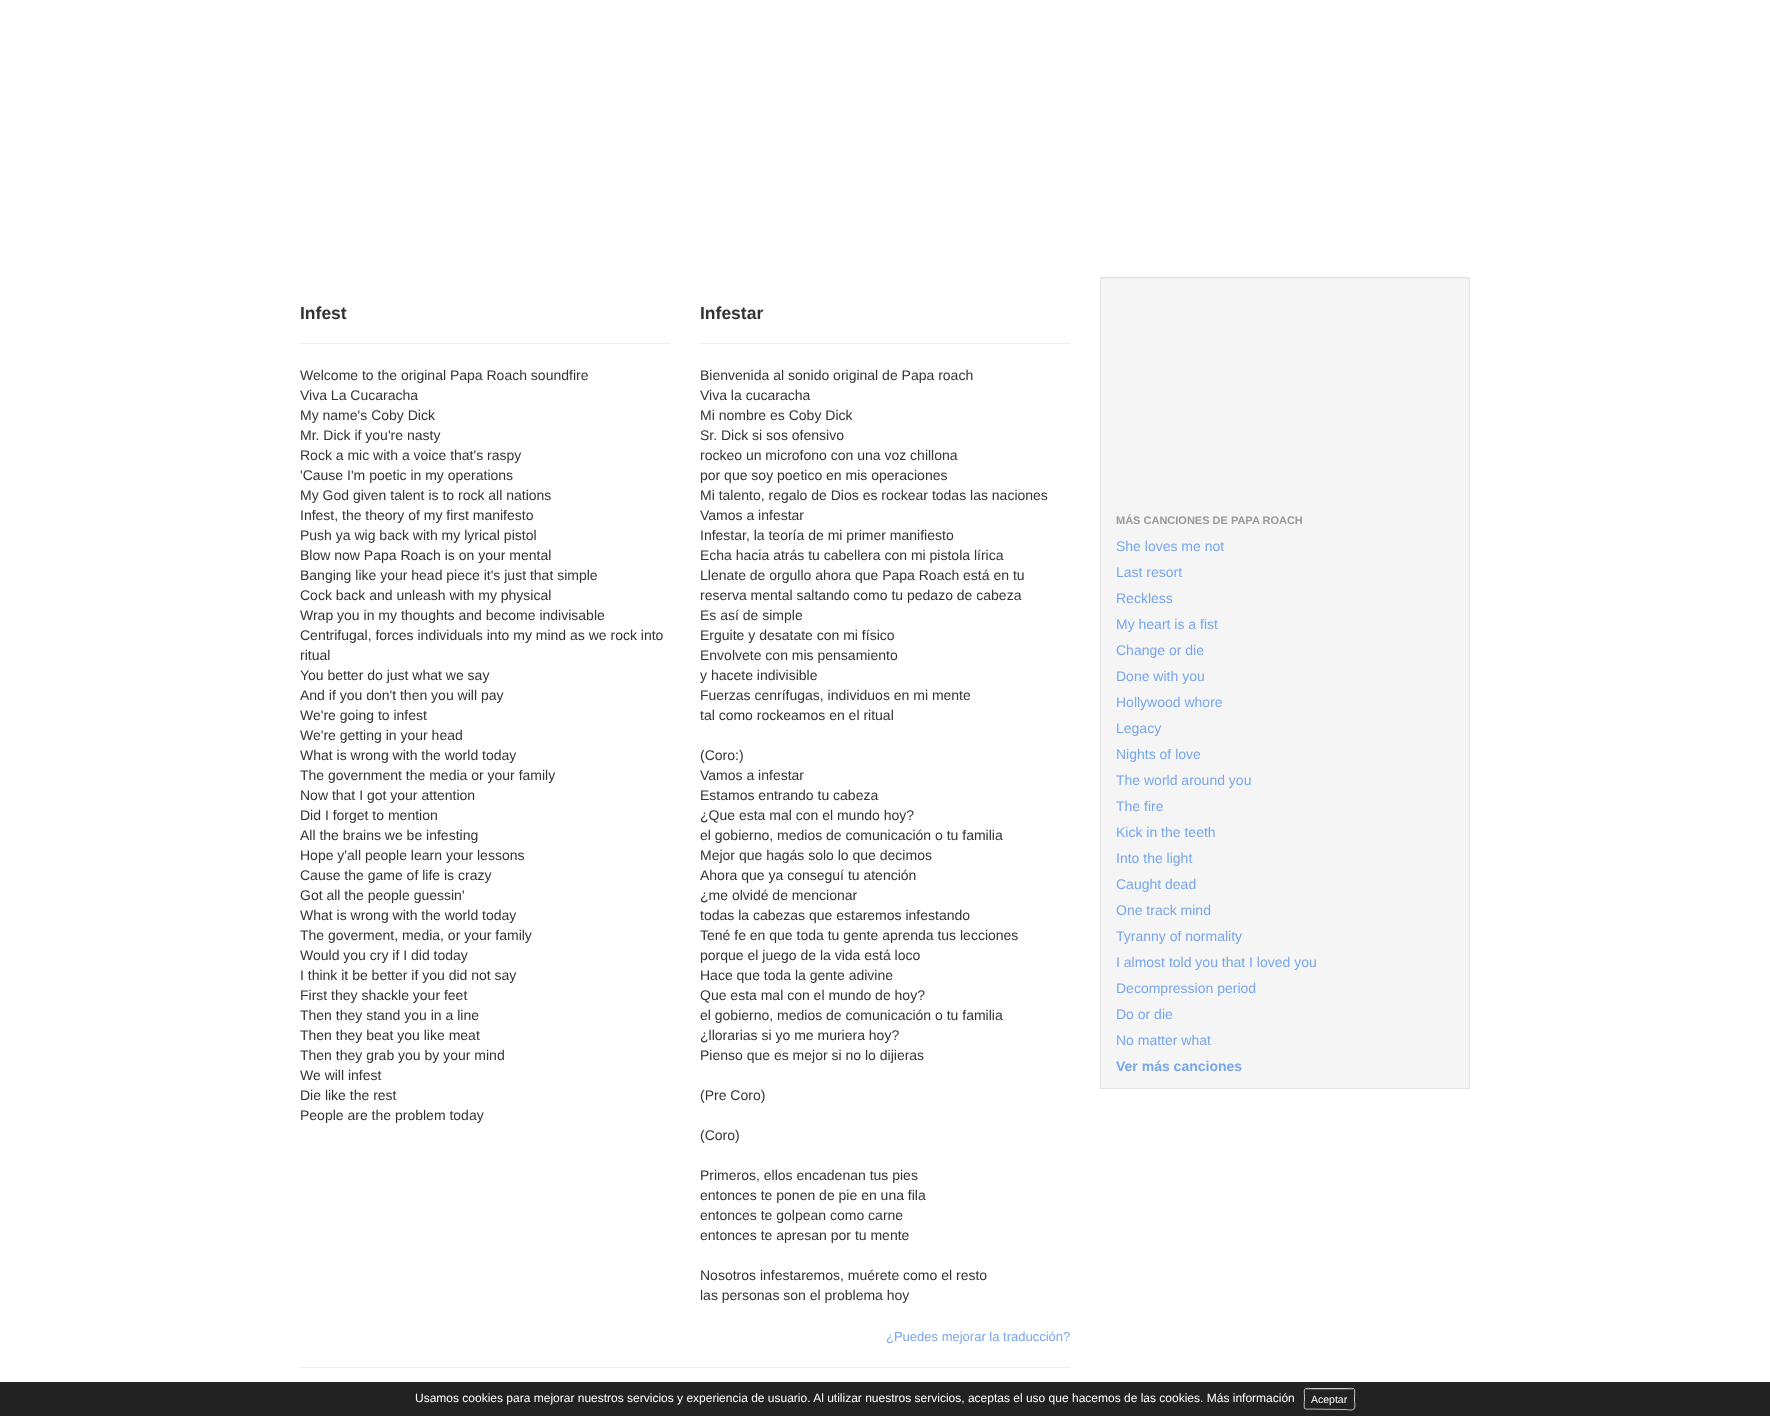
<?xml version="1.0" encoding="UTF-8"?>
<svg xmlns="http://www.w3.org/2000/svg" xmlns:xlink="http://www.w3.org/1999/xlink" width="1770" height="1416">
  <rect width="100%" height="100%" fill="#ffffff" />
  <rect x="300" y="343" width="370" height="1" fill="#eeeeee" />
  <rect x="700" y="343" width="370" height="1" fill="#eeeeee" />
  <rect x="300" y="1367" width="770" height="1" fill="#eeeeee" />
  <rect x="1101" y="279" width="368" height="809" fill="#f5f5f5" />
  <rect x="1101" y="278" width="368" height="1" fill="#e9e9e9" />
  <rect x="1100.5" y="277.5" width="369" height="811" fill="none" stroke="#e3e3e3" />
  <rect y="1382" width="1770" height="34" fill="#222222" />
  <path d="M 1306 1390 h 47 c 1 0 1 0 1 1 c 0 -4 -5 -2 -9 -2 h -31 c -4 0 -9 -2 -9 2 c 0 -1 0 -1 1 -1 z" fill="#4e4e4e" />
  <path d="M 1354 1409 c -2 2 -6 0.5 -9 0.5 l -40 -0.5" fill="none" stroke="#b3b3b3" />
  <path d="M 1305 1409 c -1.5 -1 -0.5 -8 -0.5 -10 c 0 -12.5 -2.5 -10.5 9.5 -10.5 h 31 c 12 0 9.5 -2 9.5 10.5 c 0 2 1 9 -0.5 10" fill="none" stroke="#cccccc" />
  <text x="300" y="319" style="font-family: Liberation Sans; font-size: 17.5px; font-weight: bold; fill: #333333">Infest</text>
  <text x="300" y="380" style="font-family: Liberation Sans; font-size: 14px; fill: #333333">Welcome to the original Papa Roach soundfire</text>
  <text x="300" y="400" style="font-family: Liberation Sans; font-size: 14px; fill: #333333">Viva La Cucaracha</text>
  <text x="300" y="420" style="font-family: Liberation Sans; font-size: 14px; fill: #333333">My name's Coby Dick</text>
  <text x="300" y="440" style="font-family: Liberation Sans; font-size: 14px; fill: #333333">Mr. Dick if you're nasty</text>
  <text x="300" y="460" style="font-family: Liberation Sans; font-size: 14px; fill: #333333">Rock a mic with a voice that's raspy</text>
  <text x="300" y="480" style="font-family: Liberation Sans; font-size: 14px; fill: #333333">'Cause I'm poetic in my operations</text>
  <text x="300" y="500" style="font-family: Liberation Sans; font-size: 14px; fill: #333333">My God given talent is to rock all nations</text>
  <text x="300" y="520" style="font-family: Liberation Sans; font-size: 14px; fill: #333333">Infest, the theory of my first manifesto</text>
  <text x="300" y="540" style="font-family: Liberation Sans; font-size: 14px; fill: #333333">Push ya wig back with my lyrical pistol</text>
  <text x="300" y="560" style="font-family: Liberation Sans; font-size: 14px; fill: #333333">Blow now Papa Roach is on your mental</text>
  <text x="300" y="580" style="font-family: Liberation Sans; font-size: 14px; fill: #333333">Banging like your head piece it's just that simple</text>
  <text x="300" y="600" style="font-family: Liberation Sans; font-size: 14px; fill: #333333">Cock back and unleash with my physical</text>
  <text x="300" y="620" style="font-family: Liberation Sans; font-size: 14px; fill: #333333">Wrap you in my thoughts and become indivisable</text>
  <text x="300" y="640" style="font-family: Liberation Sans; font-size: 14px; fill: #333333">Centrifugal, forces individuals into my mind as we rock into</text>
  <text x="300" y="660" style="font-family: Liberation Sans; font-size: 14px; fill: #333333">ritual</text>
  <text x="300" y="680" style="font-family: Liberation Sans; font-size: 14px; fill: #333333">You better do just what we say</text>
  <text x="300" y="700" style="font-family: Liberation Sans; font-size: 14px; fill: #333333">And if you don't then you will pay</text>
  <text x="300" y="720" style="font-family: Liberation Sans; font-size: 14px; fill: #333333">We're going to infest</text>
  <text x="300" y="740" style="font-family: Liberation Sans; font-size: 14px; fill: #333333">We're getting in your head</text>
  <text x="300" y="760" style="font-family: Liberation Sans; font-size: 14px; fill: #333333">What is wrong with the world today</text>
  <text x="300" y="780" style="font-family: Liberation Sans; font-size: 14px; fill: #333333">The government the media or your family</text>
  <text x="300" y="800" style="font-family: Liberation Sans; font-size: 14px; fill: #333333">Now that I got your attention</text>
  <text x="300" y="820" style="font-family: Liberation Sans; font-size: 14px; fill: #333333">Did I forget to mention</text>
  <text x="300" y="840" style="font-family: Liberation Sans; font-size: 14px; fill: #333333">All the brains we be infesting</text>
  <text x="300" y="860" style="font-family: Liberation Sans; font-size: 14px; fill: #333333">Hope y'all people learn your lessons</text>
  <text x="300" y="880" style="font-family: Liberation Sans; font-size: 14px; fill: #333333">Cause the game of life is crazy</text>
  <text x="300" y="900" style="font-family: Liberation Sans; font-size: 14px; fill: #333333">Got all the people guessin'</text>
  <text x="300" y="920" style="font-family: Liberation Sans; font-size: 14px; fill: #333333">What is wrong with the world today</text>
  <text x="300" y="940" style="font-family: Liberation Sans; font-size: 14px; fill: #333333">The goverment, media, or your family</text>
  <text x="300" y="960" style="font-family: Liberation Sans; font-size: 14px; fill: #333333">Would you cry if I did today</text>
  <text x="300" y="980" style="font-family: Liberation Sans; font-size: 14px; fill: #333333">I think it be better if you did not say</text>
  <text x="300" y="1000" style="font-family: Liberation Sans; font-size: 14px; fill: #333333">First they shackle your feet</text>
  <text x="300" y="1020" style="font-family: Liberation Sans; font-size: 14px; fill: #333333">Then they stand you in a line</text>
  <text x="300" y="1040" style="font-family: Liberation Sans; font-size: 14px; fill: #333333">Then they beat you like meat</text>
  <text x="300" y="1060" style="font-family: Liberation Sans; font-size: 14px; fill: #333333">Then they grab you by your mind</text>
  <text x="300" y="1080" style="font-family: Liberation Sans; font-size: 14px; fill: #333333">We will infest</text>
  <text x="300" y="1100" style="font-family: Liberation Sans; font-size: 14px; fill: #333333">Die like the rest</text>
  <text x="300" y="1120" style="font-family: Liberation Sans; font-size: 14px; fill: #333333">People are the problem today</text>
  <text x="700" y="319" style="font-family: Liberation Sans; font-size: 17.5px; font-weight: bold; fill: #333333">Infestar</text>
  <text x="700" y="380" style="font-family: Liberation Sans; font-size: 14px; fill: #333333">Bienvenida al sonido original de Papa roach</text>
  <text x="700" y="400" style="font-family: Liberation Sans; font-size: 14px; fill: #333333">Viva la cucaracha</text>
  <text x="700" y="420" style="font-family: Liberation Sans; font-size: 14px; fill: #333333">Mi nombre es Coby Dick</text>
  <text x="700" y="440" style="font-family: Liberation Sans; font-size: 14px; fill: #333333">Sr. Dick si sos ofensivo</text>
  <text x="700" y="460" style="font-family: Liberation Sans; font-size: 14px; fill: #333333">rockeo un microfono con una voz chillona</text>
  <text x="700" y="480" style="font-family: Liberation Sans; font-size: 14px; fill: #333333">por que soy poetico en mis operaciones</text>
  <text x="700" y="500" style="font-family: Liberation Sans; font-size: 14px; fill: #333333">Mi talento, regalo de Dios es rockear todas las naciones</text>
  <text x="700" y="520" style="font-family: Liberation Sans; font-size: 14px; fill: #333333">Vamos a infestar</text>
  <text x="700" y="540" style="font-family: Liberation Sans; font-size: 14px; fill: #333333">Infestar, la teoría de mi primer manifiesto</text>
  <text x="700" y="560" style="font-family: Liberation Sans; font-size: 14px; fill: #333333">Echa hacia atrás tu cabellera con mi pistola lírica</text>
  <text x="700" y="580" style="font-family: Liberation Sans; font-size: 14px; fill: #333333">Llenate de orgullo ahora que Papa Roach está en tu</text>
  <text x="700" y="600" style="font-family: Liberation Sans; font-size: 14px; fill: #333333">reserva mental saltando como tu pedazo de cabeza</text>
  <text x="700" y="620" style="font-family: Liberation Sans; font-size: 14px; fill: #333333">Es así de simple</text>
  <text x="700" y="640" style="font-family: Liberation Sans; font-size: 14px; fill: #333333">Erguite y desatate con mi físico</text>
  <text x="700" y="660" style="font-family: Liberation Sans; font-size: 14px; fill: #333333">Envolvete con mis pensamiento</text>
  <text x="700" y="680" style="font-family: Liberation Sans; font-size: 14px; fill: #333333">y hacete indivisible</text>
  <text x="700" y="700" style="font-family: Liberation Sans; font-size: 14px; fill: #333333">Fuerzas cenrífugas, individuos en mi mente</text>
  <text x="700" y="720" style="font-family: Liberation Sans; font-size: 14px; fill: #333333">tal como rockeamos en el ritual</text>
  <text x="700" y="760" style="font-family: Liberation Sans; font-size: 14px; fill: #333333">(Coro:)</text>
  <text x="700" y="780" style="font-family: Liberation Sans; font-size: 14px; fill: #333333">Vamos a infestar</text>
  <text x="700" y="800" style="font-family: Liberation Sans; font-size: 14px; fill: #333333">Estamos entrando tu cabeza</text>
  <text x="700" y="820" style="font-family: Liberation Sans; font-size: 14px; fill: #333333">¿Que esta mal con el mundo hoy?</text>
  <text x="700" y="840" style="font-family: Liberation Sans; font-size: 14px; fill: #333333">el gobierno, medios de comunicación o tu familia</text>
  <text x="700" y="860" style="font-family: Liberation Sans; font-size: 14px; fill: #333333">Mejor que hagás solo lo que decimos</text>
  <text x="700" y="880" style="font-family: Liberation Sans; font-size: 14px; fill: #333333">Ahora que ya conseguí tu atención</text>
  <text x="700" y="900" style="font-family: Liberation Sans; font-size: 14px; fill: #333333">¿me olvidé de mencionar</text>
  <text x="700" y="920" style="font-family: Liberation Sans; font-size: 14px; fill: #333333">todas la cabezas que estaremos infestando</text>
  <text x="700" y="940" style="font-family: Liberation Sans; font-size: 14px; fill: #333333">Tené fe en que toda tu gente aprenda tus lecciones</text>
  <text x="700" y="960" style="font-family: Liberation Sans; font-size: 14px; fill: #333333">porque el juego de la vida está loco</text>
  <text x="700" y="980" style="font-family: Liberation Sans; font-size: 14px; fill: #333333">Hace que toda la gente adivine</text>
  <text x="700" y="1000" style="font-family: Liberation Sans; font-size: 14px; fill: #333333">Que esta mal con el mundo de hoy?</text>
  <text x="700" y="1020" style="font-family: Liberation Sans; font-size: 14px; fill: #333333">el gobierno, medios de comunicación o tu familia</text>
  <text x="700" y="1040" style="font-family: Liberation Sans; font-size: 14px; fill: #333333">¿llorarias si yo me muriera hoy?</text>
  <text x="700" y="1060" style="font-family: Liberation Sans; font-size: 14px; fill: #333333">Pienso que es mejor si no lo dijieras</text>
  <text x="700" y="1100" style="font-family: Liberation Sans; font-size: 14px; fill: #333333">(Pre Coro)</text>
  <text x="700" y="1140" style="font-family: Liberation Sans; font-size: 14px; fill: #333333">(Coro)</text>
  <text x="700" y="1180" style="font-family: Liberation Sans; font-size: 14px; fill: #333333">Primeros, ellos encadenan tus pies</text>
  <text x="700" y="1200" style="font-family: Liberation Sans; font-size: 14px; fill: #333333">entonces te ponen de pie en una fila</text>
  <text x="700" y="1220" style="font-family: Liberation Sans; font-size: 14px; fill: #333333">entonces te golpean como carne</text>
  <text x="700" y="1240" style="font-family: Liberation Sans; font-size: 14px; fill: #333333">entonces te apresan por tu mente</text>
  <text x="700" y="1280" style="font-family: Liberation Sans; font-size: 14px; fill: #333333">Nosotros infestaremos, muérete como el resto</text>
  <text x="700" y="1300" style="font-family: Liberation Sans; font-size: 14px; fill: #333333">las personas son el problema hoy</text>
  <text x="886" y="1341" style="font-family: Liberation Sans; font-size: 13px; fill: #78a6eb">¿Puedes mejorar la traducción?</text>
  <text x="1116" y="524" style="font-family: Liberation Sans; font-size: 11px; font-weight: bold; fill: #999999">MÁS CANCIONES DE PAPA ROACH</text>
  <text x="1116" y="551" style="font-family: Liberation Sans; font-size: 14px; fill: #78a6eb">She loves me not</text>
  <text x="1116" y="577" style="font-family: Liberation Sans; font-size: 14px; fill: #78a6eb">Last resort</text>
  <text x="1116" y="603" style="font-family: Liberation Sans; font-size: 14px; fill: #78a6eb">Reckless</text>
  <text x="1116" y="629" style="font-family: Liberation Sans; font-size: 14px; fill: #78a6eb">My heart is a fist</text>
  <text x="1116" y="655" style="font-family: Liberation Sans; font-size: 14px; fill: #78a6eb">Change or die</text>
  <text x="1116" y="681" style="font-family: Liberation Sans; font-size: 14px; fill: #78a6eb">Done with you</text>
  <text x="1116" y="707" style="font-family: Liberation Sans; font-size: 14px; fill: #78a6eb">Hollywood whore</text>
  <text x="1116" y="733" style="font-family: Liberation Sans; font-size: 14px; fill: #78a6eb">Legacy</text>
  <text x="1116" y="759" style="font-family: Liberation Sans; font-size: 14px; fill: #78a6eb">Nights of love</text>
  <text x="1116" y="785" style="font-family: Liberation Sans; font-size: 14px; fill: #78a6eb">The world around you</text>
  <text x="1116" y="811" style="font-family: Liberation Sans; font-size: 14px; fill: #78a6eb">The fire</text>
  <text x="1116" y="837" style="font-family: Liberation Sans; font-size: 14px; fill: #78a6eb">Kick in the teeth</text>
  <text x="1116" y="863" style="font-family: Liberation Sans; font-size: 14px; fill: #78a6eb">Into the light</text>
  <text x="1116" y="889" style="font-family: Liberation Sans; font-size: 14px; fill: #78a6eb">Caught dead</text>
  <text x="1116" y="915" style="font-family: Liberation Sans; font-size: 14px; fill: #78a6eb">One track mind</text>
  <text x="1116" y="941" style="font-family: Liberation Sans; font-size: 14px; fill: #78a6eb">Tyranny of normality</text>
  <text x="1116" y="967" style="font-family: Liberation Sans; font-size: 14px; fill: #78a6eb">I almost told you that I loved you</text>
  <text x="1116" y="993" style="font-family: Liberation Sans; font-size: 14px; fill: #78a6eb">Decompression period</text>
  <text x="1116" y="1019" style="font-family: Liberation Sans; font-size: 14px; fill: #78a6eb">Do or die</text>
  <text x="1116" y="1045" style="font-family: Liberation Sans; font-size: 14px; fill: #78a6eb">No matter what</text>
  <text x="1116" y="1071" style="font-family: Liberation Sans; font-size: 14px; font-weight: bold; fill: #78a6eb">Ver más canciones</text>
  <text x="415" y="1402" style="font-family: Liberation Sans; font-size: 12px; fill: #ffffff">Usamos cookies para mejorar nuestros servicios y experiencia de usuario. Al utilizar nuestros servicios, aceptas el uso que hacemos de las cookies. Más información</text>
  <text x="1311" y="1403" style="font-family: Liberation Sans; font-size: 10.5px; fill: #ffffff">Aceptar</text>
</svg>
